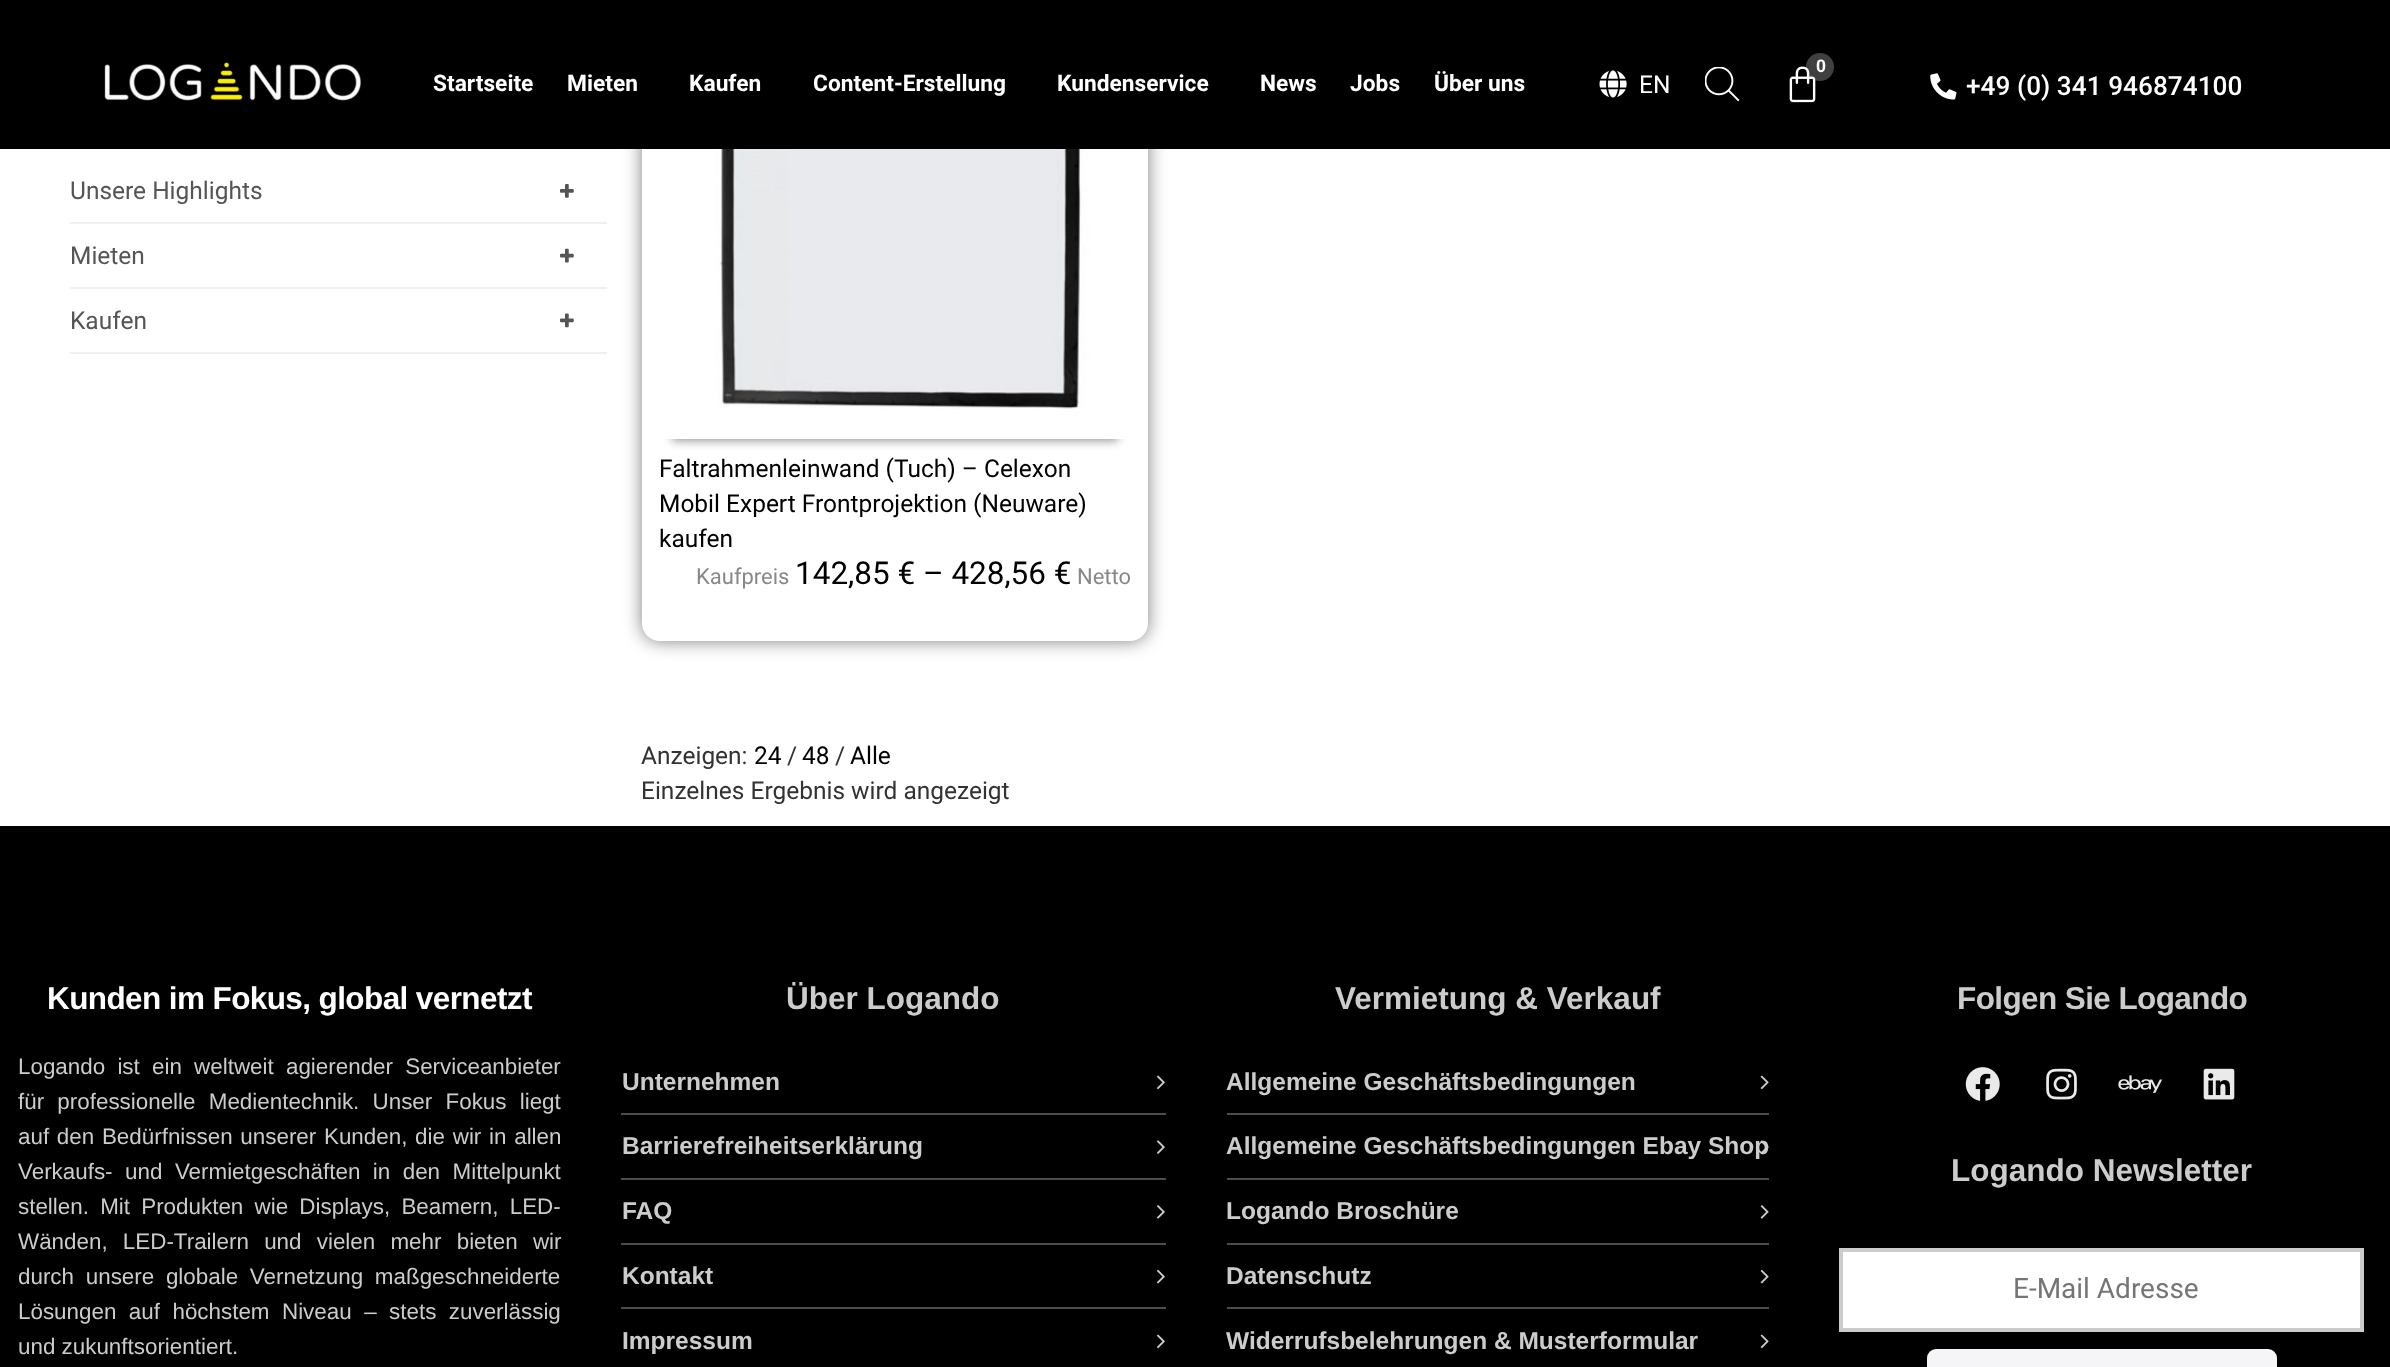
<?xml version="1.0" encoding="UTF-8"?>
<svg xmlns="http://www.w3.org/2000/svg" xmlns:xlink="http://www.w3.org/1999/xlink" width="2390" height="1367">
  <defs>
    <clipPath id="clip1"><path d="M 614 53 h 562 v 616 h -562 z m 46 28 h 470 c 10 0 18 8 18 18 v 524 c 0 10 -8 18 -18 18 h -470 c -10 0 -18 -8 -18 -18 v -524 c 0 -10 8 -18 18 -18 z" clip-rule="evenodd" /></clipPath>
    <clipPath id="clip2"><rect x="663" y="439" width="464" height="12" /></clipPath>
  </defs>
  <rect width="100%" height="100%" fill="#ffffff" />
  <g clip-path="url(#clip1)">
    <rect x="642" y="81" width="506" height="560" rx="18" fill="#000000" fill-opacity="0.5" filter="blur(9px)" />
  </g>
  <g clip-path="url(#clip2)">
    <rect x="672" y="107" width="446" height="334" fill="#999999" filter="blur(5px)" />
  </g>
  <rect width="2390" height="149" fill="#000000" />
  <image x="104" y="62" width="257" height="39" xlink:href="image1.png" />
  <image x="1599" y="70" width="28" height="28" xlink:href="image2.png" />
  <image x="1705" y="67" width="35" height="35" xlink:href="image3.png" />
  <image x="1789" y="66" width="27" height="37" xlink:href="image4.png" />
  <circle cx="1820" cy="67" r="14" fill="#ffffff" fill-opacity="0.25" />
  <image x="1930" y="73" width="27" height="27" xlink:href="image5.png" />
  <rect x="70" y="222" width="537" height="2" fill="#f0f0f0" />
  <image x="560" y="184" width="14" height="14" xlink:href="image6.png" />
  <rect x="70" y="287" width="537" height="2" fill="#f0f0f0" />
  <image x="560" y="248" width="14" height="15" xlink:href="image7.png" />
  <rect x="70" y="352" width="537" height="2" fill="#f0f0f0" />
  <image x="560" y="313" width="14" height="15" xlink:href="image8.png" />
  <image x="701" y="149" width="389" height="260" xlink:href="image9.png" />
  <rect y="826" width="2390" height="541" fill="#000000" />
  <image x="1157" y="1075" width="8" height="15" xlink:href="image10.png" />
  <rect x="621" y="1113" width="545" height="2" fill="#4c4c4c" />
  <image x="1157" y="1140" width="8" height="14" xlink:href="image11.png" />
  <rect x="621" y="1178" width="545" height="2" fill="#4c4c4c" />
  <image x="1157" y="1205" width="8" height="14" xlink:href="image12.png" />
  <rect x="621" y="1243" width="545" height="2" fill="#4c4c4c" />
  <image x="1157" y="1269" width="8" height="15" xlink:href="image13.png" />
  <rect x="621" y="1307" width="545" height="2" fill="#4c4c4c" />
  <image x="1157" y="1334" width="8" height="15" xlink:href="image10.png" />
  <image x="1760" y="1075" width="9" height="15" xlink:href="image14.png" />
  <rect x="1227" y="1113" width="542" height="2" fill="#4c4c4c" />
  <rect x="1227" y="1178" width="542" height="2" fill="#4c4c4c" />
  <image x="1760" y="1205" width="9" height="14" xlink:href="image16.png" />
  <rect x="1227" y="1243" width="542" height="2" fill="#4c4c4c" />
  <image x="1760" y="1269" width="9" height="15" xlink:href="image17.png" />
  <rect x="1227" y="1307" width="542" height="2" fill="#4c4c4c" />
  <image x="1760" y="1334" width="9" height="15" xlink:href="image14.png" />
  <image x="1965" y="1067" width="35" height="34" xlink:href="image18.png" />
  <image x="2046" y="1068" width="31" height="32" xlink:href="image19.png" />
  <image x="2118" y="1075" width="44" height="18" xlink:href="image20.png" />
  <image x="2203" y="1068" width="32" height="32" xlink:href="image21.png" />
  <rect x="1841" y="1250" width="521" height="80" fill="#ffffff" stroke="#cccccc" stroke-width="4" />
  <rect x="1927" y="1349" width="350" height="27" rx="9" fill="#f5f5f7" />
  <text x="433" y="91" style="font-family: Roboto; font-size: 22.75px; font-weight: bold; fill: #ffffff">Startseite</text>
  <text x="567" y="91" style="font-family: Roboto; font-size: 22.75px; font-weight: bold; fill: #ffffff">Mieten</text>
  <text x="689" y="91" style="font-family: Roboto; font-size: 22.75px; font-weight: bold; fill: #ffffff">Kaufen</text>
  <text x="813" y="91" style="font-family: Roboto; font-size: 22.75px; font-weight: bold; fill: #ffffff">Content-Erstellung</text>
  <text x="1057" y="91" style="font-family: Roboto; font-size: 22.75px; font-weight: bold; fill: #ffffff">Kundenservice</text>
  <text x="1260" y="91" style="font-family: Roboto; font-size: 22.75px; font-weight: bold; fill: #ffffff">News</text>
  <text x="1350" y="91" style="font-family: Roboto; font-size: 22.75px; font-weight: bold; fill: #ffffff">Jobs</text>
  <text x="1434" y="91" style="font-family: Roboto; font-size: 22.75px; font-weight: bold; fill: #ffffff">Über uns</text>
  <text x="1639" y="93" style="font-family: Roboto; font-size: 24.5px; fill: #ffffff">EN</text>
  <text x="1816" y="72" style="font-family: Liberation Sans; font-size: 18px; font-weight: bold; fill: #ffffff">0</text>
  <text x="1966" y="95" style="font-family: Roboto; font-size: 26.25px; font-weight: 500; fill: #ffffff">+49 (0) 341 946874100</text>
  <text x="70" y="199" style="font-family: Roboto; font-size: 24.5px; fill: #555555">Unsere Highlights</text>
  <text x="70" y="264" style="font-family: Roboto; font-size: 24.5px; fill: #555555">Mieten</text>
  <text x="70" y="329" style="font-family: Roboto; font-size: 24.5px; fill: #555555">Kaufen</text>
  <text x="659" y="477" style="font-family: Roboto; font-size: 24.5px; fill: #000000">Faltrahmenleinwand (Tuch) – Celexon</text>
  <text x="659" y="512" style="font-family: Roboto; font-size: 24.5px; fill: #000000">Mobil Expert Frontprojektion (Neuware)</text>
  <text x="659" y="547" style="font-family: Roboto; font-size: 24.5px; fill: #000000">kaufen</text>
  <text x="696" y="584" style="font-family: Roboto; font-size: 22px; fill: #888888">Kaufpreis</text>
  <text x="795" y="584" style="font-family: Roboto; font-size: 31.5px; fill: #000000">142,85 € – 428,56 €</text>
  <text x="1077" y="584" style="font-family: Roboto; font-size: 22px; fill: #888888">Netto</text>
  <text x="641" y="764" style="font-family: Roboto; font-size: 24.5px; fill: #333333">Anzeigen:</text>
  <text x="754" y="764" style="font-family: Roboto; font-size: 24.5px; fill: #000000">24</text>
  <text x="787" y="764" style="font-family: Roboto; font-size: 24.5px; fill: #333333">/</text>
  <text x="802" y="764" style="font-family: Roboto; font-size: 24.5px; fill: #000000">48</text>
  <text x="835" y="764" style="font-family: Roboto; font-size: 24.5px; fill: #333333">/</text>
  <text x="850" y="764" style="font-family: Roboto; font-size: 24.5px; fill: #000000">Alle</text>
  <text x="641" y="799" style="font-family: Roboto; font-size: 24.5px; fill: #333333">Einzelnes Ergebnis wird angezeigt</text>
  <text x="47" y="1009" style="font-family: Liberation Sans; font-size: 31.5px; font-weight: bold; letter-spacing: -0.6px; fill: #ffffff">Kunden im Fokus, global vernetzt</text>
  <text x="18" y="1074" word-spacing="6" style="font-family: Liberation Sans; font-size: 22.4px; fill: #cccccc">Logando ist ein weltweit agierender Serviceanbieter</text>
  <text x="18" y="1109" word-spacing="7" style="font-family: Liberation Sans; font-size: 22.4px; fill: #cccccc">für professionelle Medientechnik. Unser Fokus liegt</text>
  <text x="18" y="1144" word-spacing="1.5" style="font-family: Liberation Sans; font-size: 22.4px; fill: #cccccc">auf den Bedürfnissen unserer Kunden, die wir in allen</text>
  <text x="18" y="1179" word-spacing="6.25" style="font-family: Liberation Sans; font-size: 22.4px; fill: #cccccc">Verkaufs- und Vermietgeschäften in den Mittelpunkt</text>
  <text x="18" y="1214" word-spacing="5" style="font-family: Liberation Sans; font-size: 22.4px; fill: #cccccc">stellen. Mit Produkten wie Displays, Beamern, LED-</text>
  <text x="18" y="1249" word-spacing="9" style="font-family: Liberation Sans; font-size: 22.4px; fill: #cccccc">Wänden, LED-Trailern und vielen mehr bieten wir</text>
  <text x="18" y="1284" word-spacing="5.5" style="font-family: Liberation Sans; font-size: 22.4px; fill: #cccccc">durch unsere globale Vernetzung maßgeschneiderte</text>
  <text x="18" y="1319" word-spacing="6.25" style="font-family: Liberation Sans; font-size: 22.4px; fill: #cccccc">Lösungen auf höchstem Niveau – stets zuverlässig</text>
  <text x="18" y="1354" style="font-family: Liberation Sans; font-size: 22.4px; fill: #cccccc">und zukunftsorientiert.</text>
  <text x="786" y="1009" style="font-family: Liberation Sans; font-size: 31.5px; font-weight: bold; fill: #cccccc">Über Logando</text>
  <text x="622" y="1090" style="font-family: Liberation Sans; font-size: 24.5px; font-weight: bold; fill: #cccccc">Unternehmen</text>
  <text x="622" y="1154" style="font-family: Liberation Sans; font-size: 24.5px; font-weight: bold; fill: #cccccc">Barrierefreiheitserklärung</text>
  <text x="622" y="1219" style="font-family: Liberation Sans; font-size: 24.5px; font-weight: bold; fill: #cccccc">FAQ</text>
  <text x="622" y="1284" style="font-family: Liberation Sans; font-size: 24.5px; font-weight: bold; fill: #cccccc">Kontakt</text>
  <text x="622" y="1349" style="font-family: Liberation Sans; font-size: 24.5px; font-weight: bold; fill: #cccccc">Impressum</text>
  <text x="1335" y="1009" style="font-family: Liberation Sans; font-size: 31.5px; font-weight: bold; fill: #cccccc">Vermietung &amp; Verkauf</text>
  <text x="1226" y="1090" style="font-family: Liberation Sans; font-size: 24.5px; font-weight: bold; fill: #cccccc">Allgemeine Geschäftsbedingungen</text>
  <text x="1226" y="1154" style="font-family: Liberation Sans; font-size: 24.5px; font-weight: bold; fill: #cccccc">Allgemeine Geschäftsbedingungen Ebay Shop</text>
  <image x="1760" y="1140" width="9" height="14" xlink:href="image15.png" />
  <text x="1226" y="1219" style="font-family: Liberation Sans; font-size: 24.5px; font-weight: bold; fill: #cccccc">Logando Broschüre</text>
  <text x="1226" y="1284" style="font-family: Liberation Sans; font-size: 24.5px; font-weight: bold; fill: #cccccc">Datenschutz</text>
  <text x="1226" y="1349" style="font-family: Liberation Sans; font-size: 24.5px; font-weight: bold; fill: #cccccc">Widerrufsbelehrungen &amp; Musterformular</text>
  <text x="1957" y="1009" style="font-family: Liberation Sans; font-size: 31.5px; font-weight: bold; letter-spacing: -0.6px; fill: #cccccc">Folgen Sie Logando</text>
  <text x="1951" y="1181" style="font-family: Liberation Sans; font-size: 31.5px; font-weight: bold; fill: #cccccc">Logando Newsletter</text>
  <text x="2013" y="1298" style="font-family: Roboto; font-size: 28px; fill: #757575">E-Mail Adresse</text>
</svg>
